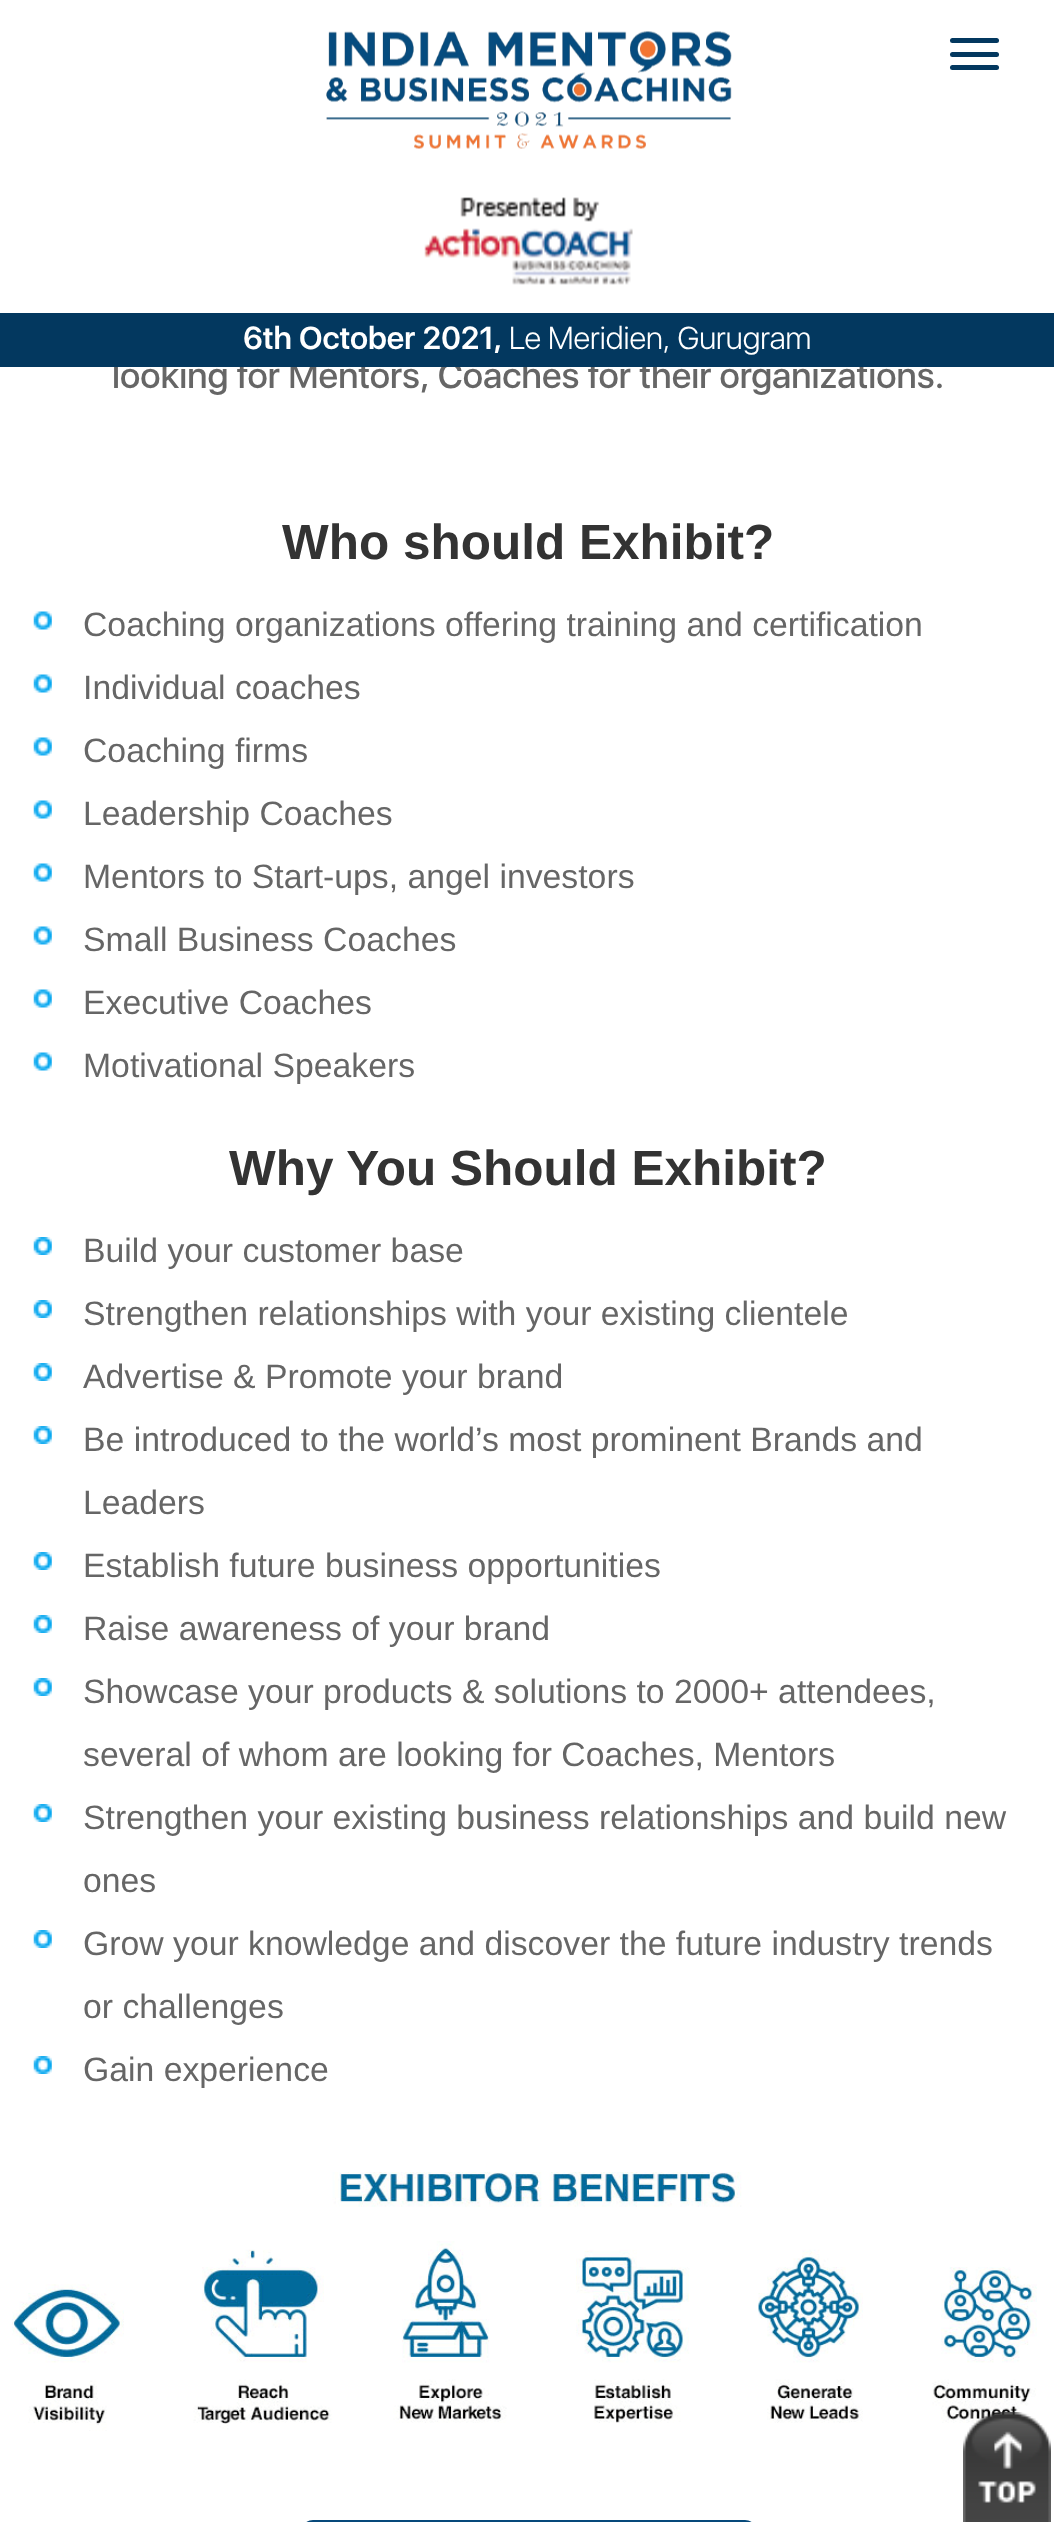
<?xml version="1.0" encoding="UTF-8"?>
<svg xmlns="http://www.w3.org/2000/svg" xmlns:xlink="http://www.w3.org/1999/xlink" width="1054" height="2522">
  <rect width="100%" height="100%" fill="#ffffff" />
  <image x="326" y="31" width="406" height="118" xlink:href="image1.png" />
  <rect x="950" y="38" width="49" height="5" rx="2.5" fill="#03385f" />
  <rect x="950" y="52" width="49" height="5" rx="2.5" fill="#03385f" />
  <rect x="950" y="65" width="49" height="5" rx="2.5" fill="#03385f" />
  <image x="424" y="197" width="209" height="88" xlink:href="image2.png" />
  <image x="33" y="611" width="19" height="19" xlink:href="image3.png" />
  <image x="33" y="674" width="19" height="19" xlink:href="image3.png" />
  <image x="33" y="737" width="19" height="19" xlink:href="image3.png" />
  <image x="33" y="800" width="19" height="19" xlink:href="image3.png" />
  <image x="33" y="863" width="19" height="19" xlink:href="image3.png" />
  <image x="33" y="926" width="19" height="19" xlink:href="image3.png" />
  <image x="33" y="989" width="19" height="19" xlink:href="image3.png" />
  <image x="33" y="1052" width="19" height="19" xlink:href="image3.png" />
  <image x="33" y="1237" width="19" height="18" xlink:href="image4.png" />
  <image x="33" y="1300" width="19" height="18" xlink:href="image4.png" />
  <image x="33" y="1363" width="19" height="18" xlink:href="image4.png" />
  <image x="33" y="1426" width="19" height="18" xlink:href="image4.png" />
  <image x="33" y="1552" width="19" height="18" xlink:href="image4.png" />
  <image x="33" y="1615" width="19" height="18" xlink:href="image4.png" />
  <image x="33" y="1678" width="19" height="18" xlink:href="image4.png" />
  <image x="33" y="1804" width="19" height="18" xlink:href="image4.png" />
  <image x="33" y="1930" width="19" height="18" xlink:href="image4.png" />
  <image x="33" y="2056" width="19" height="18" xlink:href="image4.png" />
  <image x="12" y="2172" width="1025" height="259" xlink:href="image5.png" />
  <rect x="305" y="2521" width="448" height="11" rx="8" fill="none" stroke="#07497a" stroke-width="2" />
  <image x="963" y="2412" width="88" height="110" xlink:href="image6.png" />
  <text x="112" y="388" style="font-family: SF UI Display; font-size: 36px; font-weight: 500; fill: #666666">looking for Mentors, Coaches for their organizations.</text>
  <rect y="313" width="1054" height="54" fill="#03385f" />
  <text x="509" y="349" style="font-family: SF UI Display; font-size: 31.5px; font-weight: 300; fill: #ffffff">Le Meridien, Gurugram</text>
  <text x="243" y="349" style="font-family: SF UI Display; font-size: 31.5px; font-weight: 600; fill: #ffffff">6th October 2021,</text>
  <text x="282" y="559" style="font-family: Liberation Sans; font-size: 49.5px; font-weight: bold; fill: #333333">Who should Exhibit?</text>
  <text x="83" y="636" style="font-family: Liberation Sans; font-size: 33.75px; fill: #666666">Coaching organizations offering training and certification</text>
  <text x="83" y="699" style="font-family: Liberation Sans; font-size: 33.75px; fill: #666666">Individual coaches</text>
  <text x="83" y="762" style="font-family: Liberation Sans; font-size: 33.75px; fill: #666666">Coaching firms</text>
  <text x="83" y="825" style="font-family: Liberation Sans; font-size: 33.75px; fill: #666666">Leadership Coaches</text>
  <text x="83" y="888" style="font-family: Liberation Sans; font-size: 33.75px; fill: #666666">Mentors to Start-ups, angel investors</text>
  <text x="83" y="951" style="font-family: Liberation Sans; font-size: 33.75px; fill: #666666">Small Business Coaches</text>
  <text x="83" y="1014" style="font-family: Liberation Sans; font-size: 33.75px; fill: #666666">Executive Coaches</text>
  <text x="83" y="1077" style="font-family: Liberation Sans; font-size: 33.75px; fill: #666666">Motivational Speakers</text>
  <text x="229" y="1185" style="font-family: Liberation Sans; font-size: 49.5px; font-weight: bold; fill: #333333">Why You Should Exhibit?</text>
  <text x="83" y="1262" style="font-family: Liberation Sans; font-size: 33.75px; fill: #666666">Build your customer base</text>
  <text x="83" y="1325" style="font-family: Liberation Sans; font-size: 33.75px; fill: #666666">Strengthen relationships with your existing clientele</text>
  <text x="83" y="1388" style="font-family: Liberation Sans; font-size: 33.75px; fill: #666666">Advertise &amp; Promote your brand</text>
  <text x="83" y="1451" style="font-family: Liberation Sans; font-size: 33.75px; fill: #666666">Be introduced to the world’s most prominent Brands and</text>
  <text x="83" y="1514" style="font-family: Liberation Sans; font-size: 33.75px; fill: #666666">Leaders</text>
  <text x="83" y="1577" style="font-family: Liberation Sans; font-size: 33.75px; fill: #666666">Establish future business opportunities</text>
  <text x="83" y="1640" style="font-family: Liberation Sans; font-size: 33.75px; fill: #666666">Raise awareness of your brand</text>
  <text x="83" y="1703" style="font-family: Liberation Sans; font-size: 33.75px; fill: #666666">Showcase your products &amp; solutions to 2000+ attendees,</text>
  <text x="83" y="1766" style="font-family: Liberation Sans; font-size: 33.75px; fill: #666666">several of whom are looking for Coaches, Mentors</text>
  <text x="83" y="1829" style="font-family: Liberation Sans; font-size: 33.75px; fill: #666666">Strengthen your existing business relationships and build new</text>
  <text x="83" y="1892" style="font-family: Liberation Sans; font-size: 33.75px; fill: #666666">ones</text>
  <text x="83" y="1955" style="font-family: Liberation Sans; font-size: 33.75px; fill: #666666">Grow your knowledge and discover the future industry trends</text>
  <text x="83" y="2018" style="font-family: Liberation Sans; font-size: 33.75px; fill: #666666">or challenges</text>
  <text x="83" y="2081" style="font-family: Liberation Sans; font-size: 33.75px; fill: #666666">Gain experience</text>
</svg>
